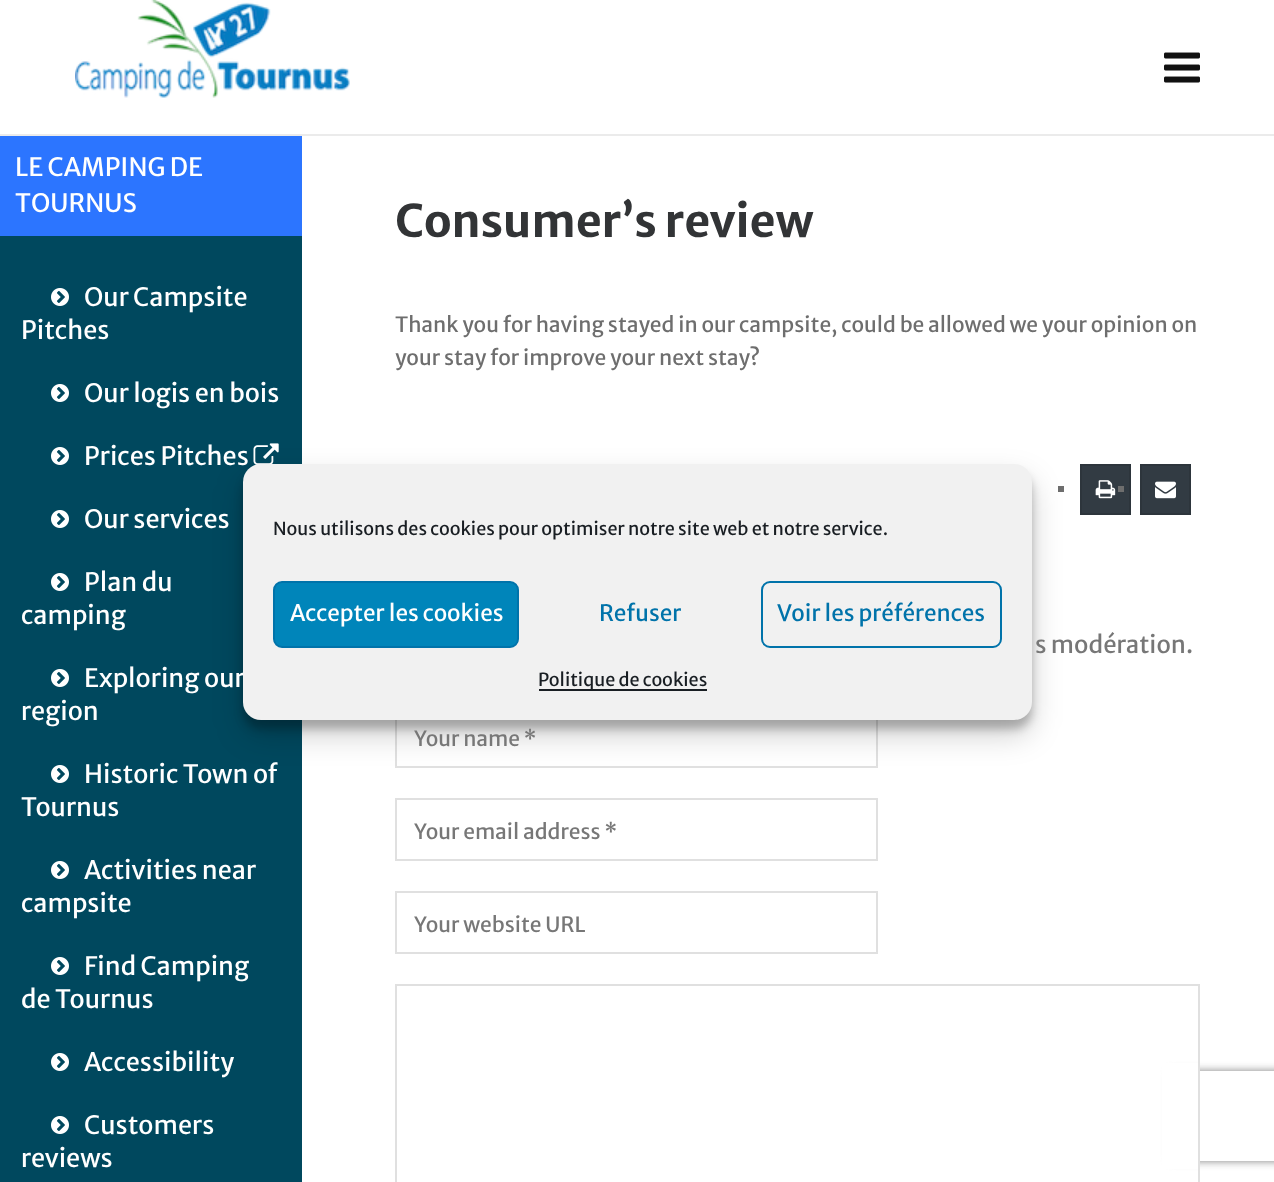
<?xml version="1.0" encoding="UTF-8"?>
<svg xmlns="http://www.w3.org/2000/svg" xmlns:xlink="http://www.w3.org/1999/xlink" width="1274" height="1182">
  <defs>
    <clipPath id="clip1"><path d="M 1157 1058 h 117 v 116 h -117 z m 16 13 h 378 c 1.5 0 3 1.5 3 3 v 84 c 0 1.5 -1.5 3 -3 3 h -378 c -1.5 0 -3 -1.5 -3 -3 v -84 c 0 -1.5 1.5 -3 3 -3 z" clip-rule="evenodd" /></clipPath>
  </defs>
  <rect width="100%" height="100%" fill="#ffffff" />
  <rect y="134" width="1274" height="2" fill="#ebebeb" />
  <image x="75" y="0" width="275" height="98" xlink:href="image1.png" />
  <image x="1164" y="52" width="36" height="31" xlink:href="image2.png" />
  <rect y="236" width="302" height="946" fill="#00485e" />
  <rect y="136" width="302" height="100" fill="#2c75ff" />
  <image x="51" y="288" width="18" height="18" xlink:href="image3.png" />
  <image x="51" y="384" width="18" height="18" xlink:href="image3.png" />
  <image x="51" y="447" width="18" height="18" xlink:href="image3.png" />
  <image x="253" y="443" width="26" height="22" xlink:href="image4.png" />
  <image x="51" y="510" width="18" height="18" xlink:href="image3.png" />
  <image x="51" y="573" width="18" height="18" xlink:href="image3.png" />
  <image x="51" y="669" width="18" height="18" xlink:href="image3.png" />
  <image x="51" y="765" width="18" height="18" xlink:href="image3.png" />
  <image x="51" y="861" width="18" height="18" xlink:href="image3.png" />
  <image x="51" y="957" width="18" height="18" xlink:href="image3.png" />
  <image x="51" y="1053" width="18" height="18" xlink:href="image3.png" />
  <image x="51" y="1116" width="18" height="18" xlink:href="image3.png" />
  <rect x="1058" y="486" width="6" height="6" fill="#6e6e6e" />
  <rect x="1081" y="465" width="49" height="49" fill="#323b43" stroke="#2d353c" stroke-width="2" />
  <image x="1095" y="480" width="21" height="19" xlink:href="image5.png" />
  <rect x="1118" y="486" width="6" height="6" fill="#6e6e6e" />
  <rect x="1141" y="465" width="49" height="49" fill="#323b43" stroke="#2d353c" stroke-width="2" />
  <image x="1155" y="481" width="21" height="18" xlink:href="image6.png" />
  <rect x="396" y="706" width="481" height="61" fill="none" stroke="#e0e0e0" stroke-width="2" />
  <rect x="396" y="799" width="481" height="61" fill="none" stroke="#e0e0e0" stroke-width="2" />
  <rect x="396" y="892" width="481" height="61" fill="none" stroke="#e0e0e0" stroke-width="2" />
  <g clip-path="url(#clip1)">
    <rect x="1170" y="1071" width="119" height="90" rx="3" fill="#808080" filter="blur(4px)" />
  </g>
  <rect x="1162" y="1063" width="36" height="106" fill="#ffffff" />
  <rect x="396" y="985" width="803" height="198" fill="none" stroke="#e0e0e0" stroke-width="2" />
  <rect x="243" y="473" width="789" height="256" rx="18" fill="#000000" fill-opacity="0.23" filter="blur(4.5px)" />
  <rect x="243" y="479" width="789" height="256" rx="18" fill="#000000" fill-opacity="0.19" filter="blur(15px)" />
  <text x="15" y="176" style="font-family: Merriweather Sans; font-size: 25.25px; fill: #ffffff">LE CAMPING DE</text>
  <text x="15" y="212" style="font-family: Merriweather Sans; font-size: 25.25px; fill: #ffffff">TOURNUS</text>
  <text x="84" y="306" style="font-family: Merriweather Sans; font-size: 25.25px; fill: #ffffff">Our Campsite</text>
  <text x="21" y="339" style="font-family: Merriweather Sans; font-size: 25.25px; fill: #ffffff">Pitches</text>
  <text x="84" y="402" style="font-family: Merriweather Sans; font-size: 25.25px; fill: #ffffff">Our logis en bois</text>
  <text x="84" y="465" style="font-family: Merriweather Sans; font-size: 25.25px; fill: #ffffff">Prices Pitches</text>
  <text x="84" y="528" style="font-family: Merriweather Sans; font-size: 25.25px; fill: #ffffff">Our services</text>
  <text x="84" y="591" style="font-family: Merriweather Sans; font-size: 25.25px; fill: #ffffff">Plan du</text>
  <text x="21" y="624" style="font-family: Merriweather Sans; font-size: 25.25px; fill: #ffffff">camping</text>
  <text x="84" y="687" style="font-family: Merriweather Sans; font-size: 25.25px; fill: #ffffff">Exploring our</text>
  <text x="21" y="720" style="font-family: Merriweather Sans; font-size: 25.25px; fill: #ffffff">region</text>
  <text x="84" y="783" style="font-family: Merriweather Sans; font-size: 25.25px; fill: #ffffff">Historic Town of</text>
  <text x="21" y="816" style="font-family: Merriweather Sans; font-size: 25.25px; fill: #ffffff">Tournus</text>
  <text x="84" y="879" style="font-family: Merriweather Sans; font-size: 25.25px; fill: #ffffff">Activities near</text>
  <text x="21" y="912" style="font-family: Merriweather Sans; font-size: 25.25px; fill: #ffffff">campsite</text>
  <text x="84" y="975" style="font-family: Merriweather Sans; font-size: 25.25px; fill: #ffffff">Find Camping</text>
  <text x="21" y="1008" style="font-family: Merriweather Sans; font-size: 25.25px; fill: #ffffff">de Tournus</text>
  <text x="84" y="1071" style="font-family: Merriweather Sans; font-size: 25.25px; fill: #ffffff">Accessibility</text>
  <text x="84" y="1134" style="font-family: Merriweather Sans; font-size: 25.25px; fill: #ffffff">Customers</text>
  <text x="21" y="1167" style="font-family: Merriweather Sans; font-size: 25.25px; fill: #ffffff">reviews</text>
  <text x="395" y="237" style="font-family: Merriweather Sans; font-size: 45px; font-weight: bold; fill: #323436">Consumer’s review</text>
  <text x="395" y="332" style="font-family: Merriweather Sans; font-size: 21px; fill: #6e6e6e">Thank you for having stayed in our campsite, could be allowed we your opinion on</text>
  <text x="395" y="365" style="font-family: Merriweather Sans; font-size: 21px; fill: #6e6e6e">your stay for improve your next stay?</text>
  <text x="1035" y="653" style="font-family: Merriweather Sans; font-size: 24px; fill: #777777">s modération.</text>
  <text x="414" y="746" style="font-family: Merriweather Sans; font-size: 21px; fill: #777777">Your name *</text>
  <text x="414" y="839" style="font-family: Merriweather Sans; font-size: 21px; fill: #777777">Your email address *</text>
  <text x="414" y="932" style="font-family: Merriweather Sans; font-size: 21px; fill: #777777">Your website URL</text>
  <rect x="243" y="464" width="789" height="256" rx="18" fill="#f1f1f1" />
  <text x="273" y="535" style="font-family: Merriweather Sans; font-size: 18px; fill: #191e23">Nous utilisons des cookies pour optimiser notre site web et notre service.</text>
  <rect x="274" y="582" width="244" height="65" rx="8" fill="#0085ba" stroke="#0073aa" stroke-width="2" />
  <text x="290" y="621" style="font-family: Merriweather Sans; font-size: 22.5px; fill: #ffffff">Accepter les cookies</text>
  <text x="599" y="621" style="font-family: Merriweather Sans; font-size: 22.5px; fill: #0073aa">Refuser</text>
  <rect x="762" y="582" width="239" height="65" rx="8" fill="none" stroke="#0073aa" stroke-width="2" />
  <text x="777" y="621" style="font-family: Merriweather Sans; font-size: 22.5px; fill: #0073aa">Voir les préférences</text>
  <rect x="539" y="689" width="168" height="2" fill="#191e23" />
  <text x="538" y="686" style="font-family: Merriweather Sans; font-size: 18px; fill: #191e23">Politique de cookies</text>
</svg>
